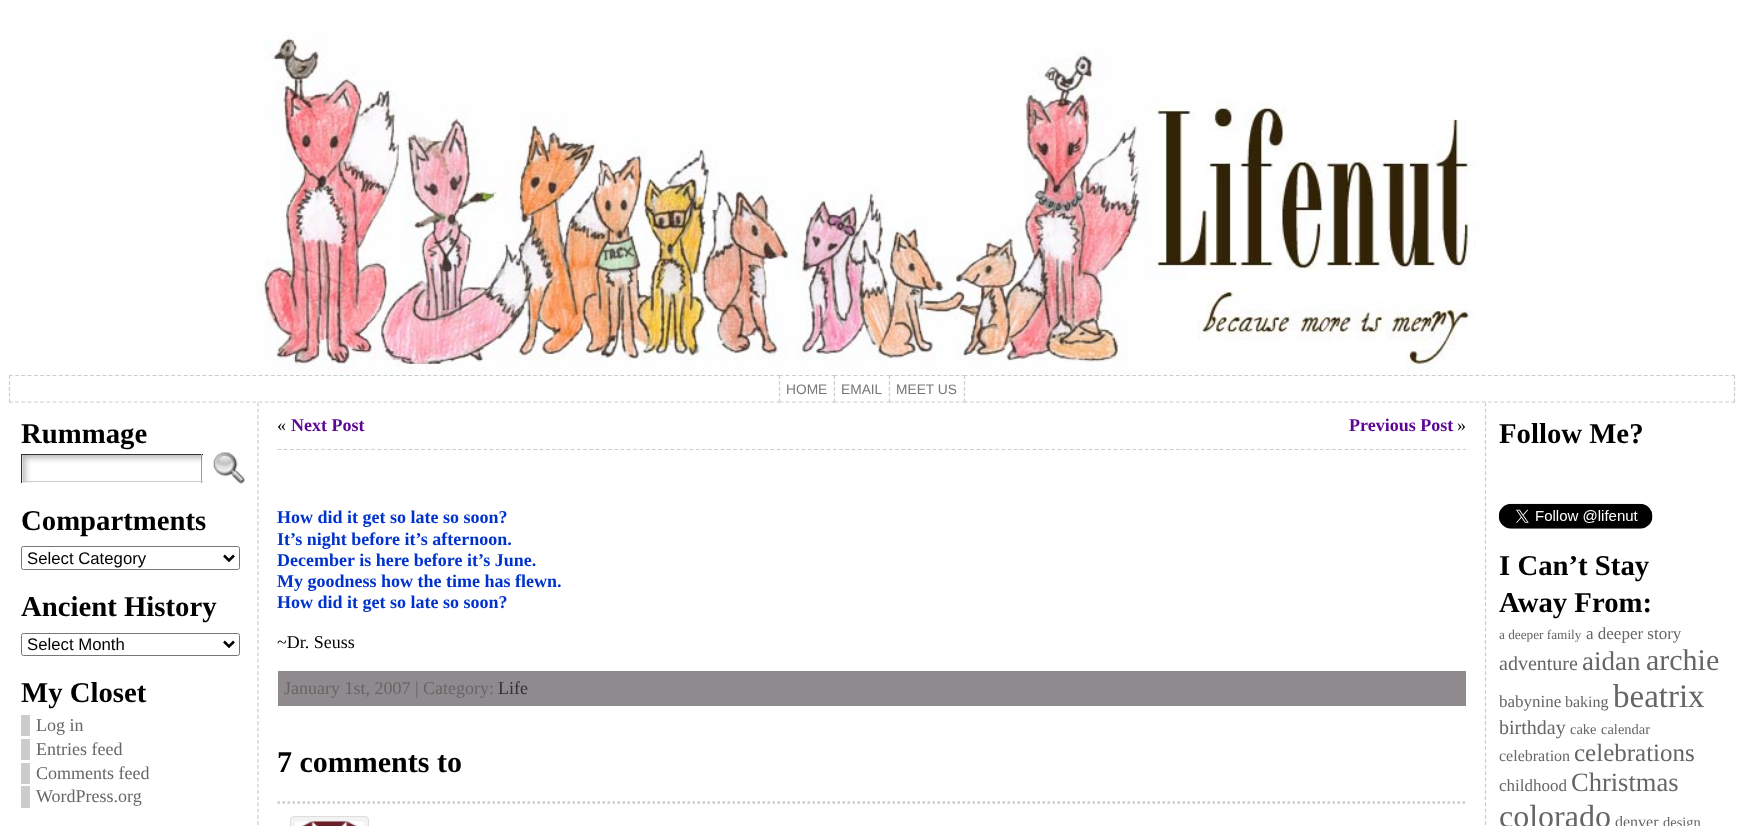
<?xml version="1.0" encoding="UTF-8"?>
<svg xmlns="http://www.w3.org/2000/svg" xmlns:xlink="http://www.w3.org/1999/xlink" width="1743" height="826">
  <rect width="100%" height="100%" fill="#ffffff" />
  <path d="M 9 375.5 h 1726" fill="none" stroke="#cccccc" stroke-width="1.2" stroke-dasharray="3.75 2.49" />
  <image x="247" y="31" width="1249" height="344" xlink:href="image1.png" />
  <path d="M 1734.5 375 v 27.5" fill="none" stroke="#cccccc" stroke-width="1.2" stroke-dasharray="3.75 2.19" />
  <path d="M 9 402 h 1726" fill="none" stroke="#cccccc" stroke-width="1.2" stroke-dasharray="3.75 2.49" />
  <path d="M 9.5 375 v 27.5" fill="none" stroke="#cccccc" stroke-width="1.2" stroke-dasharray="3.75 2.19" />
  <rect x="779" y="375" width="55" height="28" fill="#ffffff" />
  <path d="M 779 375.5 h 56" fill="none" stroke="#cccccc" stroke-width="1.2" stroke-dasharray="3.75 2.81" />
  <path d="M 834.5 375 v 27.5" fill="none" stroke="#cccccc" stroke-width="1.2" stroke-dasharray="3.75 2.19" />
  <path d="M 779 402 h 56" fill="none" stroke="#cccccc" stroke-width="1.2" stroke-dasharray="3.75 2.81" />
  <path d="M 779.5 375 v 27.5" fill="none" stroke="#cccccc" stroke-width="1.2" stroke-dasharray="3.75 2.19" />
  <rect x="834" y="375" width="55" height="28" fill="#ffffff" />
  <path d="M 834 375.5 h 56" fill="none" stroke="#cccccc" stroke-width="1.2" stroke-dasharray="3.75 2.81" />
  <path d="M 889.5 375 v 27.5" fill="none" stroke="#cccccc" stroke-width="1.2" stroke-dasharray="3.75 2.19" />
  <path d="M 834 402 h 56" fill="none" stroke="#cccccc" stroke-width="1.2" stroke-dasharray="3.75 2.81" />
  <path d="M 834.5 375 v 27.5" fill="none" stroke="#cccccc" stroke-width="1.2" stroke-dasharray="3.75 2.19" />
  <rect x="889" y="375" width="76" height="28" fill="#ffffff" />
  <path d="M 889 375.5 h 76" fill="none" stroke="#cccccc" stroke-width="1.2" stroke-dasharray="3.75 2.29" />
  <path d="M 964.5 375 v 27.5" fill="none" stroke="#cccccc" stroke-width="1.2" stroke-dasharray="3.75 2.19" />
  <path d="M 889 402 h 76" fill="none" stroke="#cccccc" stroke-width="1.2" stroke-dasharray="3.75 2.29" />
  <path d="M 889.5 375 v 27.5" fill="none" stroke="#cccccc" stroke-width="1.2" stroke-dasharray="3.75 2.19" />
  <path d="M 258 402.5 v 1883.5" fill="none" stroke="#cccccc" stroke-width="1.2" stroke-dasharray="3.75 2.5" />
  <image x="22" y="455" width="181" height="28" xlink:href="image2.png" />
  <rect x="21" y="454" width="182" height="1" fill="#333333" />
  <rect x="201" y="454" width="1" height="29" fill="#999999" />
  <rect x="21" y="481" width="182" height="1" fill="#cccccc" />
  <rect x="21" y="454" width="1" height="29" fill="#333333" />
  <image x="213" y="452" width="32" height="32" xlink:href="image3.png" />
  <rect x="21.5" y="546.5" width="218" height="23" rx="2" fill="none" stroke="#767676" />
  <path d="M 224 555.5 l 5 5 l 5 -5" fill="none" stroke="#000000" stroke-width="2.5" />
  <rect x="21.5" y="633.5" width="218" height="22" rx="2" fill="none" stroke="#767676" />
  <path d="M 224 641.5 l 5 5 l 5 -5" fill="none" stroke="#000000" stroke-width="2.5" />
  <rect x="21" y="715" width="9" height="21" fill="#cccccc" />
  <rect x="21" y="739" width="9" height="21" fill="#cccccc" />
  <rect x="21" y="763" width="9" height="21" fill="#cccccc" />
  <rect x="21" y="786" width="9" height="22" fill="#cccccc" />
  <path d="M 277.5 449.5 h 1188.5" fill="none" stroke="#cccccc" stroke-width="1.2" stroke-dasharray="3.75 2.49" />
  <rect x="278" y="671" width="1188" height="35" fill="#8e8a8e" />
  <path d="M 277.5 802.5 h 1188.5" fill="none" stroke="#cccccc" stroke-width="2.5" stroke-dasharray="2.5 2.5" />
  <rect x="290.5" y="816.5" width="78" height="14" rx="3.5" fill="#f3f3f3" stroke="#dddddd" />
  <image x="295" y="821" width="69" height="5" xlink:href="image4.png" />
  <path d="M 1485.5 402.5 v 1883.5" fill="none" stroke="#cccccc" stroke-width="1.2" stroke-dasharray="3.75 2.5" />
  <image x="1498" y="503" width="155" height="26" xlink:href="image5.png" />
  <text x="786" y="394" style="font-family: Liberation Sans; font-size: 13.75px; fill: #777777">HOME</text>
  <text x="841" y="394" style="font-family: Liberation Sans; font-size: 13.75px; fill: #777777">EMAIL</text>
  <text x="896" y="394" style="font-family: Liberation Sans; font-size: 13.75px; fill: #777777">MEET US</text>
  <text x="21" y="443" style="font-family: Liberation Serif; font-size: 28.75px; font-weight: bold; fill: #000000">Rummage</text>
  <text x="21" y="530" style="font-family: Liberation Serif; font-size: 28.75px; font-weight: bold; fill: #000000">Compartments</text>
  <text x="27" y="564" style="font-family: Liberation Sans; font-size: 16.75px; fill: #000000">Select Category</text>
  <text x="21" y="616" style="font-family: Liberation Serif; font-size: 28.75px; font-weight: bold; fill: #000000">Ancient History</text>
  <text x="27" y="650" style="font-family: Liberation Sans; font-size: 16.75px; fill: #000000">Select Month</text>
  <text x="21" y="702" style="font-family: Liberation Serif; font-size: 28.75px; font-weight: bold; fill: #000000">My Closet</text>
  <text x="36" y="731" style="font-family: Liberation Serif; font-size: 18px; fill: #666666">Log in</text>
  <text x="36" y="755" style="font-family: Liberation Serif; font-size: 18px; fill: #666666">Entries feed</text>
  <text x="36" y="779" style="font-family: Liberation Serif; font-size: 18px; fill: #666666">Comments feed</text>
  <text x="36" y="802" style="font-family: Liberation Serif; font-size: 18px; fill: #666666">WordPress.org</text>
  <text x="277" y="431" style="font-family: Liberation Serif; font-size: 18px; fill: #000000">«</text>
  <text x="291" y="431" style="font-family: Liberation Serif; font-size: 18px; font-weight: bold; fill: #5d0696">Next Post</text>
  <text x="1349" y="431" style="font-family: Liberation Serif; font-size: 18px; font-weight: bold; fill: #5d0696">Previous Post</text>
  <text x="1457" y="431" style="font-family: Liberation Serif; font-size: 18px; fill: #000000">»</text>
  <text x="277" y="523" style="font-family: Liberation Serif; font-size: 18px; font-weight: bold; fill: #0033cc">How did it get so late so soon?</text>
  <text x="277" y="545" style="font-family: Liberation Serif; font-size: 18px; font-weight: bold; fill: #0033cc">It’s night before it’s afternoon.</text>
  <text x="277" y="566" style="font-family: Liberation Serif; font-size: 18px; font-weight: bold; fill: #0033cc">December is here before it’s June.</text>
  <text x="277" y="587" style="font-family: Liberation Serif; font-size: 18px; font-weight: bold; fill: #0033cc">My goodness how the time has flewn.</text>
  <text x="277" y="608" style="font-family: Liberation Serif; font-size: 18px; font-weight: bold; fill: #0033cc">How did it get so late so soon?</text>
  <text x="277" y="648" style="font-family: Liberation Serif; font-size: 18px; fill: #000000">~Dr. Seuss</text>
  <text x="284" y="694" style="font-family: Liberation Serif; font-size: 18px; fill: #666666">January 1st, 2007 | Category:</text>
  <text x="498" y="694" style="font-family: Liberation Serif; font-size: 18px; fill: #333333">Life</text>
  <text x="277" y="772" style="font-family: Liberation Serif; font-size: 30px; font-weight: bold; fill: #000000">7 comments to</text>
  <text x="1499" y="443" style="font-family: Liberation Serif; font-size: 28.75px; font-weight: bold; fill: #000000">Follow Me?</text>
  <text x="1499" y="575" style="font-family: Liberation Serif; font-size: 28.75px; font-weight: bold; fill: #000000">I Can’t Stay</text>
  <text x="1499" y="612" style="font-family: Liberation Serif; font-size: 28.75px; font-weight: bold; fill: #000000">Away From:</text>
  <text x="1499" y="639" style="font-family: Liberation Serif; font-size: 13.25px; fill: #666666">a deeper family</text>
  <text x="1586" y="639" style="font-family: Liberation Serif; font-size: 17px; fill: #666666">a deeper story</text>
  <text x="1499" y="670" style="font-family: Liberation Serif; font-size: 20px; fill: #666666">adventure</text>
  <text x="1582" y="670" style="font-family: Liberation Serif; font-size: 27px; fill: #666666">aidan</text>
  <text x="1646" y="670" style="font-family: Liberation Serif; font-size: 30px; fill: #666666">archie</text>
  <text x="1499" y="707" style="font-family: Liberation Serif; font-size: 17px; fill: #666666">babynine</text>
  <text x="1565" y="707" style="font-family: Liberation Serif; font-size: 16px; fill: #666666">baking</text>
  <text x="1613" y="707" style="font-family: Liberation Serif; font-size: 33px; fill: #666666">beatrix</text>
  <text x="1499" y="734" style="font-family: Liberation Serif; font-size: 20px; fill: #666666">birthday</text>
  <text x="1570" y="734" style="font-family: Liberation Serif; font-size: 14.5px; fill: #666666">cake</text>
  <text x="1601" y="734" style="font-family: Liberation Serif; font-size: 14.5px; fill: #666666">calendar</text>
  <text x="1499" y="761" style="font-family: Liberation Serif; font-size: 16px; fill: #666666">celebration</text>
  <text x="1574" y="761" style="font-family: Liberation Serif; font-size: 25px; fill: #666666">celebrations</text>
  <text x="1499" y="791" style="font-family: Liberation Serif; font-size: 17px; fill: #666666">childhood</text>
  <text x="1571" y="791" style="font-family: Liberation Serif; font-size: 26.5px; fill: #666666">Christmas</text>
  <text x="1499" y="827" style="font-family: Liberation Serif; font-size: 32px; fill: #666666">colorado</text>
  <text x="1615" y="827" style="font-family: Liberation Serif; font-size: 16px; fill: #666666">denver</text>
  <text x="1663" y="827" style="font-family: Liberation Serif; font-size: 14.5px; fill: #666666">design</text>
</svg>
